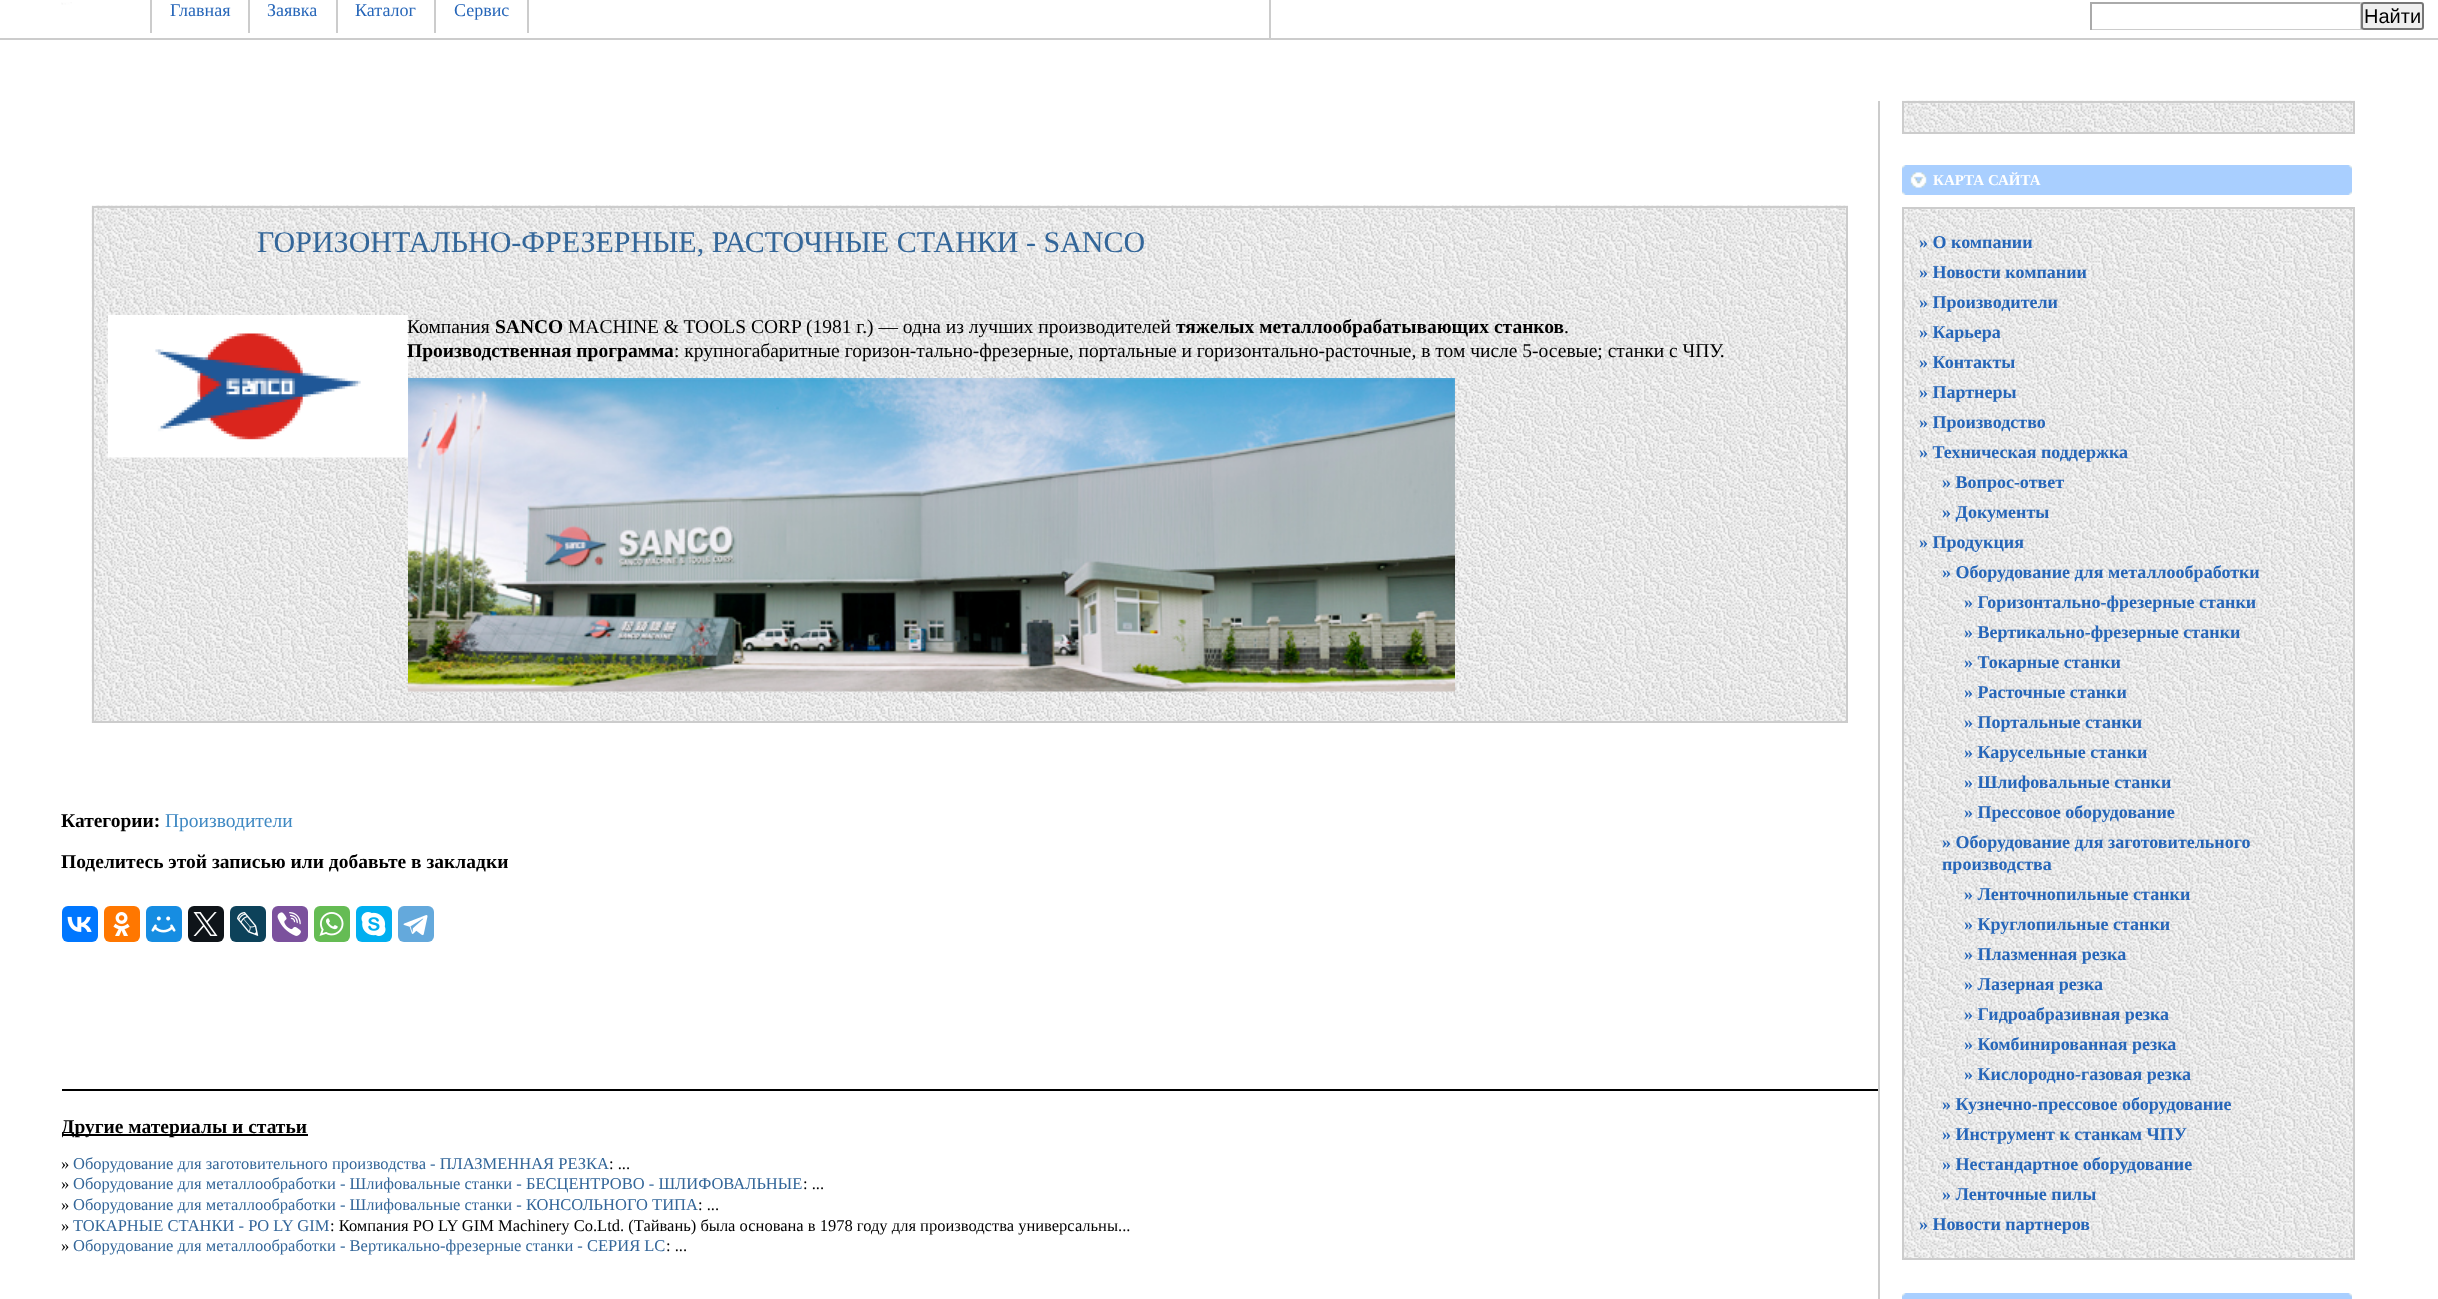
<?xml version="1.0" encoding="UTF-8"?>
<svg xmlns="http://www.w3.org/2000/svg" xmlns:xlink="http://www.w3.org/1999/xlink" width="2438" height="1299">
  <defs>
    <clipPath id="clip1"><rect x="62" y="1040" width="1816" height="217" /></clipPath>
  </defs>
  <rect width="100%" height="100%" fill="#ffffff" />
  <rect y="38" width="2438" height="2" fill="#cccccc" />
  <image x="61" y="2" width="11" height="3" xlink:href="image1.png" />
  <rect x="150" width="2" height="33" fill="#cccccc" />
  <rect x="248" width="2" height="33" fill="#cccccc" />
  <rect x="336" width="2" height="33" fill="#cccccc" />
  <rect x="527" width="2" height="33" fill="#cccccc" />
  <rect x="434" width="2" height="33" fill="#cccccc" />
  <rect x="1269" width="2" height="38" fill="#cccccc" />
  <rect x="2090" y="2" width="271" height="2" fill="#aaaaaa" />
  <rect x="2360" y="2" width="2" height="28" fill="#cccccc" />
  <rect x="2090" y="29" width="271" height="1" fill="#cccccc" />
  <rect x="2090" y="2" width="2" height="28" fill="#aaaaaa" />
  <rect x="2362" y="3" width="61" height="26" rx="2" fill="#efefef" stroke="#767676" stroke-width="2" />
  <rect x="1878" y="101" width="2" height="1198" fill="#cccccc" />
  <image x="91" y="205" width="1757" height="518" xlink:href="image2.png" />
  <rect x="93" y="207" width="1754" height="515" fill="none" stroke="#cccccc" stroke-width="2" />
  <image x="108" y="315" width="300" height="143" xlink:href="image3.png" />
  <image x="408" y="378" width="1047" height="314" xlink:href="image4.png" />
  <rect x="62" y="906" width="36" height="36" rx="6" fill="#0077ff" />
  <image x="67" y="916" width="25" height="16" xlink:href="image5.png" />
  <rect x="104" y="906" width="36" height="36" rx="6" fill="#ff7700" />
  <image x="113" y="912" width="17" height="24" xlink:href="image6.png" />
  <rect x="146" y="906" width="36" height="36" rx="6" fill="#168de2" />
  <image x="151" y="916" width="25" height="17" xlink:href="image7.png" />
  <rect x="188" y="906" width="36" height="36" rx="6" fill="#0f1419" />
  <image x="193" y="912" width="25" height="24" xlink:href="image8.png" />
  <rect x="230" y="906" width="36" height="36" rx="6" fill="#0d425a" />
  <image x="237" y="912" width="22" height="24" xlink:href="image9.png" />
  <rect x="272" y="906" width="36" height="36" rx="6" fill="#7b519d" />
  <image x="277" y="912" width="24" height="24" xlink:href="image10.png" />
  <rect x="314" y="906" width="36" height="36" rx="6" fill="#65bc54" />
  <image x="319" y="912" width="25" height="24" xlink:href="image11.png" />
  <rect x="356" y="906" width="36" height="36" rx="6" fill="#00aff0" />
  <image x="361" y="912" width="25" height="24" xlink:href="image12.png" />
  <rect x="398" y="906" width="36" height="36" rx="6" fill="#64a9dc" />
  <image x="403" y="915" width="25" height="21" xlink:href="image13.png" />
  <rect x="62" y="1089" width="1816" height="2" fill="#000000" />
  <rect x="62" y="1134" width="246" height="2" fill="#000000" />
  <image x="1902" y="100" width="453" height="32" xlink:href="image14.png" />
  <rect x="1903" y="102" width="451" height="31" fill="none" stroke="#cccccc" stroke-width="2" />
  <image x="1902" y="165" width="450" height="30" xlink:href="image15.png" />
  <image x="1904" y="209" width="449" height="1049" xlink:href="image16.png" />
  <rect x="1903" y="208" width="451" height="1051" fill="none" stroke="#cccccc" stroke-width="2" />
  <image x="1902" y="1293" width="450" height="6" xlink:href="image17.png" />
  <text x="170" y="16" style="font-family: Liberation Serif; font-size: 18px; fill: #2666b9">Главная</text>
  <text x="267" y="16" style="font-family: Liberation Serif; font-size: 18px; fill: #2666b9">Заявка</text>
  <text x="355" y="16" style="font-family: Liberation Serif; font-size: 18px; fill: #2666b9">Каталог</text>
  <text x="454" y="16" style="font-family: Liberation Serif; font-size: 18px; fill: #2666b9">Сервис</text>
  <text x="2364" y="23" style="font-family: Liberation Sans; font-size: 20px; fill: #000000">Найти</text>
  <text x="257" y="252" style="font-family: Liberation Serif; font-size: 30px; fill: #336699">ГОРИЗОНТАЛЬНО-ФРЕЗЕРНЫЕ, РАСТОЧНЫЕ СТАНКИ - SANCO</text>
  <text x="407" y="333" style="font-family: Liberation Serif; font-size: 19.5px; fill: #000000">Компания</text>
  <text x="495" y="333" style="font-family: Liberation Serif; font-size: 19.5px; font-weight: bold; fill: #000000">SANCO</text>
  <text x="568" y="333" style="font-family: Liberation Serif; font-size: 19.5px; fill: #000000">MACHINE &amp; TOOLS CORP</text>
  <text x="806" y="333" style="font-family: Liberation Serif; font-size: 19.5px; fill: #000000">(1981 г.) — одна из лучших производителей</text>
  <text x="1176" y="333" style="font-family: Liberation Serif; font-size: 19.5px; font-weight: bold; fill: #000000">тяжелых металлообрабатывающих станков</text>
  <text x="1564" y="333" style="font-family: Liberation Serif; font-size: 19.5px; fill: #000000">.</text>
  <text x="407" y="357" style="font-family: Liberation Serif; font-size: 19.5px; font-weight: bold; fill: #000000">Производственная программа</text>
  <text x="674" y="357" style="font-family: Liberation Serif; font-size: 19.5px; fill: #000000">: крупногабаритные горизон-тально-фрезерные, портальные и горизонтально-расточные, в том числе 5-осевые; станки с ЧПУ.</text>
  <text x="61" y="827" style="font-family: Liberation Serif; font-size: 19.5px; font-weight: bold; fill: #000000">Категории:</text>
  <text x="165" y="827" style="font-family: Liberation Serif; font-size: 19.5px; fill: #3f89c3">Производители</text>
  <text x="61" y="868" style="font-family: Liberation Serif; font-size: 19.5px; font-weight: bold; fill: #000000">Поделитесь этой записью или добавьте в закладки</text>
  <g clip-path="url(#clip1)">
    <text x="61" y="1133" style="font-family: Liberation Serif; font-size: 19.5px; font-weight: bold; fill: #000000">Другие материалы и статьи</text>
  </g>
  <text x="61" y="1169" style="font-family: Liberation Serif; font-size: 16.5px; fill: #000000">»</text>
  <text x="73" y="1169" style="font-family: Liberation Serif; font-size: 16.5px; fill: #336699">Оборудование для заготовительного производства - ПЛАЗМЕННАЯ РЕЗКА</text>
  <text x="609" y="1169" style="font-family: Liberation Serif; font-size: 16.5px; fill: #000000">: ...</text>
  <text x="61" y="1189" style="font-family: Liberation Serif; font-size: 16.5px; fill: #000000">»</text>
  <text x="73" y="1189" style="font-family: Liberation Serif; font-size: 16.5px; fill: #336699">Оборудование для металлообработки - Шлифовальные станки - БЕСЦЕНТРОВО - ШЛИФОВАЛЬНЫЕ</text>
  <text x="803" y="1189" style="font-family: Liberation Serif; font-size: 16.5px; fill: #000000">: ...</text>
  <text x="61" y="1210" style="font-family: Liberation Serif; font-size: 16.5px; fill: #000000">»</text>
  <text x="73" y="1210" style="font-family: Liberation Serif; font-size: 16.5px; fill: #336699">Оборудование для металлообработки - Шлифовальные станки - КОНСОЛЬНОГО ТИПА</text>
  <text x="698" y="1210" style="font-family: Liberation Serif; font-size: 16.5px; fill: #000000">: ...</text>
  <text x="61" y="1231" style="font-family: Liberation Serif; font-size: 16.5px; fill: #000000">»</text>
  <text x="73" y="1231" style="font-family: Liberation Serif; font-size: 16.5px; fill: #336699">ТОКАРНЫЕ СТАНКИ - PO LY GIM</text>
  <text x="330" y="1231" style="font-family: Liberation Serif; font-size: 16.5px; fill: #000000">: Компания PO LY GIM Machinery Co.Ltd. (Тайвань) была основана в 1978 году для производства универсальны...</text>
  <text x="61" y="1251" style="font-family: Liberation Serif; font-size: 16.5px; fill: #000000">»</text>
  <text x="73" y="1251" style="font-family: Liberation Serif; font-size: 16.5px; fill: #336699">Оборудование для металлообработки - Вертикально-фрезерные станки - СЕРИЯ LC</text>
  <text x="666" y="1251" style="font-family: Liberation Serif; font-size: 16.5px; fill: #000000">: ...</text>
  <text x="1933" y="185" style="font-family: Liberation Serif; font-size: 15px; font-weight: bold; fill: #ffffff">КАРТА САЙТА</text>
  <text x="1919" y="248" style="font-family: Liberation Serif; font-size: 18px; font-weight: bold; fill: #2666b9">» О компании</text>
  <text x="1919" y="278" style="font-family: Liberation Serif; font-size: 18px; font-weight: bold; fill: #2666b9">» Новости компании</text>
  <text x="1919" y="308" style="font-family: Liberation Serif; font-size: 18px; font-weight: bold; fill: #2666b9">» Производители</text>
  <text x="1919" y="338" style="font-family: Liberation Serif; font-size: 18px; font-weight: bold; fill: #2666b9">» Карьера</text>
  <text x="1919" y="368" style="font-family: Liberation Serif; font-size: 18px; font-weight: bold; fill: #2666b9">» Контакты</text>
  <text x="1919" y="398" style="font-family: Liberation Serif; font-size: 18px; font-weight: bold; fill: #2666b9">» Партнеры</text>
  <text x="1919" y="428" style="font-family: Liberation Serif; font-size: 18px; font-weight: bold; fill: #2666b9">» Производство</text>
  <text x="1919" y="458" style="font-family: Liberation Serif; font-size: 18px; font-weight: bold; fill: #2666b9">» Техническая поддержка</text>
  <text x="1942" y="488" style="font-family: Liberation Serif; font-size: 18px; font-weight: bold; fill: #2666b9">» Вопрос-ответ</text>
  <text x="1942" y="518" style="font-family: Liberation Serif; font-size: 18px; font-weight: bold; fill: #2666b9">» Документы</text>
  <text x="1919" y="548" style="font-family: Liberation Serif; font-size: 18px; font-weight: bold; fill: #2666b9">» Продукция</text>
  <text x="1942" y="578" style="font-family: Liberation Serif; font-size: 18px; font-weight: bold; fill: #2666b9">» Оборудование для металлообработки</text>
  <text x="1964" y="608" style="font-family: Liberation Serif; font-size: 18px; font-weight: bold; fill: #2666b9">» Горизонтально-фрезерные станки</text>
  <text x="1964" y="638" style="font-family: Liberation Serif; font-size: 18px; font-weight: bold; fill: #2666b9">» Вертикально-фрезерные станки</text>
  <text x="1964" y="668" style="font-family: Liberation Serif; font-size: 18px; font-weight: bold; fill: #2666b9">» Токарные станки</text>
  <text x="1964" y="698" style="font-family: Liberation Serif; font-size: 18px; font-weight: bold; fill: #2666b9">» Расточные станки</text>
  <text x="1964" y="728" style="font-family: Liberation Serif; font-size: 18px; font-weight: bold; fill: #2666b9">» Портальные станки</text>
  <text x="1964" y="758" style="font-family: Liberation Serif; font-size: 18px; font-weight: bold; fill: #2666b9">» Карусельные станки</text>
  <text x="1964" y="788" style="font-family: Liberation Serif; font-size: 18px; font-weight: bold; fill: #2666b9">» Шлифовальные станки</text>
  <text x="1964" y="818" style="font-family: Liberation Serif; font-size: 18px; font-weight: bold; fill: #2666b9">» Прессовое оборудование</text>
  <text x="1942" y="848" style="font-family: Liberation Serif; font-size: 18px; font-weight: bold; fill: #2666b9">» Оборудование для заготовительного</text>
  <text x="1942" y="870" style="font-family: Liberation Serif; font-size: 18px; font-weight: bold; fill: #2666b9">производства</text>
  <text x="1964" y="900" style="font-family: Liberation Serif; font-size: 18px; font-weight: bold; fill: #2666b9">» Ленточнопильные станки</text>
  <text x="1964" y="930" style="font-family: Liberation Serif; font-size: 18px; font-weight: bold; fill: #2666b9">» Круглопильные станки</text>
  <text x="1964" y="960" style="font-family: Liberation Serif; font-size: 18px; font-weight: bold; fill: #2666b9">» Плазменная резка</text>
  <text x="1964" y="990" style="font-family: Liberation Serif; font-size: 18px; font-weight: bold; fill: #2666b9">» Лазерная резка</text>
  <text x="1964" y="1020" style="font-family: Liberation Serif; font-size: 18px; font-weight: bold; fill: #2666b9">» Гидроабразивная резка</text>
  <text x="1964" y="1050" style="font-family: Liberation Serif; font-size: 18px; font-weight: bold; fill: #2666b9">» Комбинированная резка</text>
  <text x="1964" y="1080" style="font-family: Liberation Serif; font-size: 18px; font-weight: bold; fill: #2666b9">» Кислородно-газовая резка</text>
  <text x="1942" y="1110" style="font-family: Liberation Serif; font-size: 18px; font-weight: bold; fill: #2666b9">» Кузнечно-прессовое оборудование</text>
  <text x="1942" y="1140" style="font-family: Liberation Serif; font-size: 18px; font-weight: bold; fill: #2666b9">» Инструмент к станкам ЧПУ</text>
  <text x="1942" y="1170" style="font-family: Liberation Serif; font-size: 18px; font-weight: bold; fill: #2666b9">» Нестандартное оборудование</text>
  <text x="1942" y="1200" style="font-family: Liberation Serif; font-size: 18px; font-weight: bold; fill: #2666b9">» Ленточные пилы</text>
  <text x="1919" y="1230" style="font-family: Liberation Serif; font-size: 18px; font-weight: bold; fill: #2666b9">» Новости партнеров</text>
</svg>
